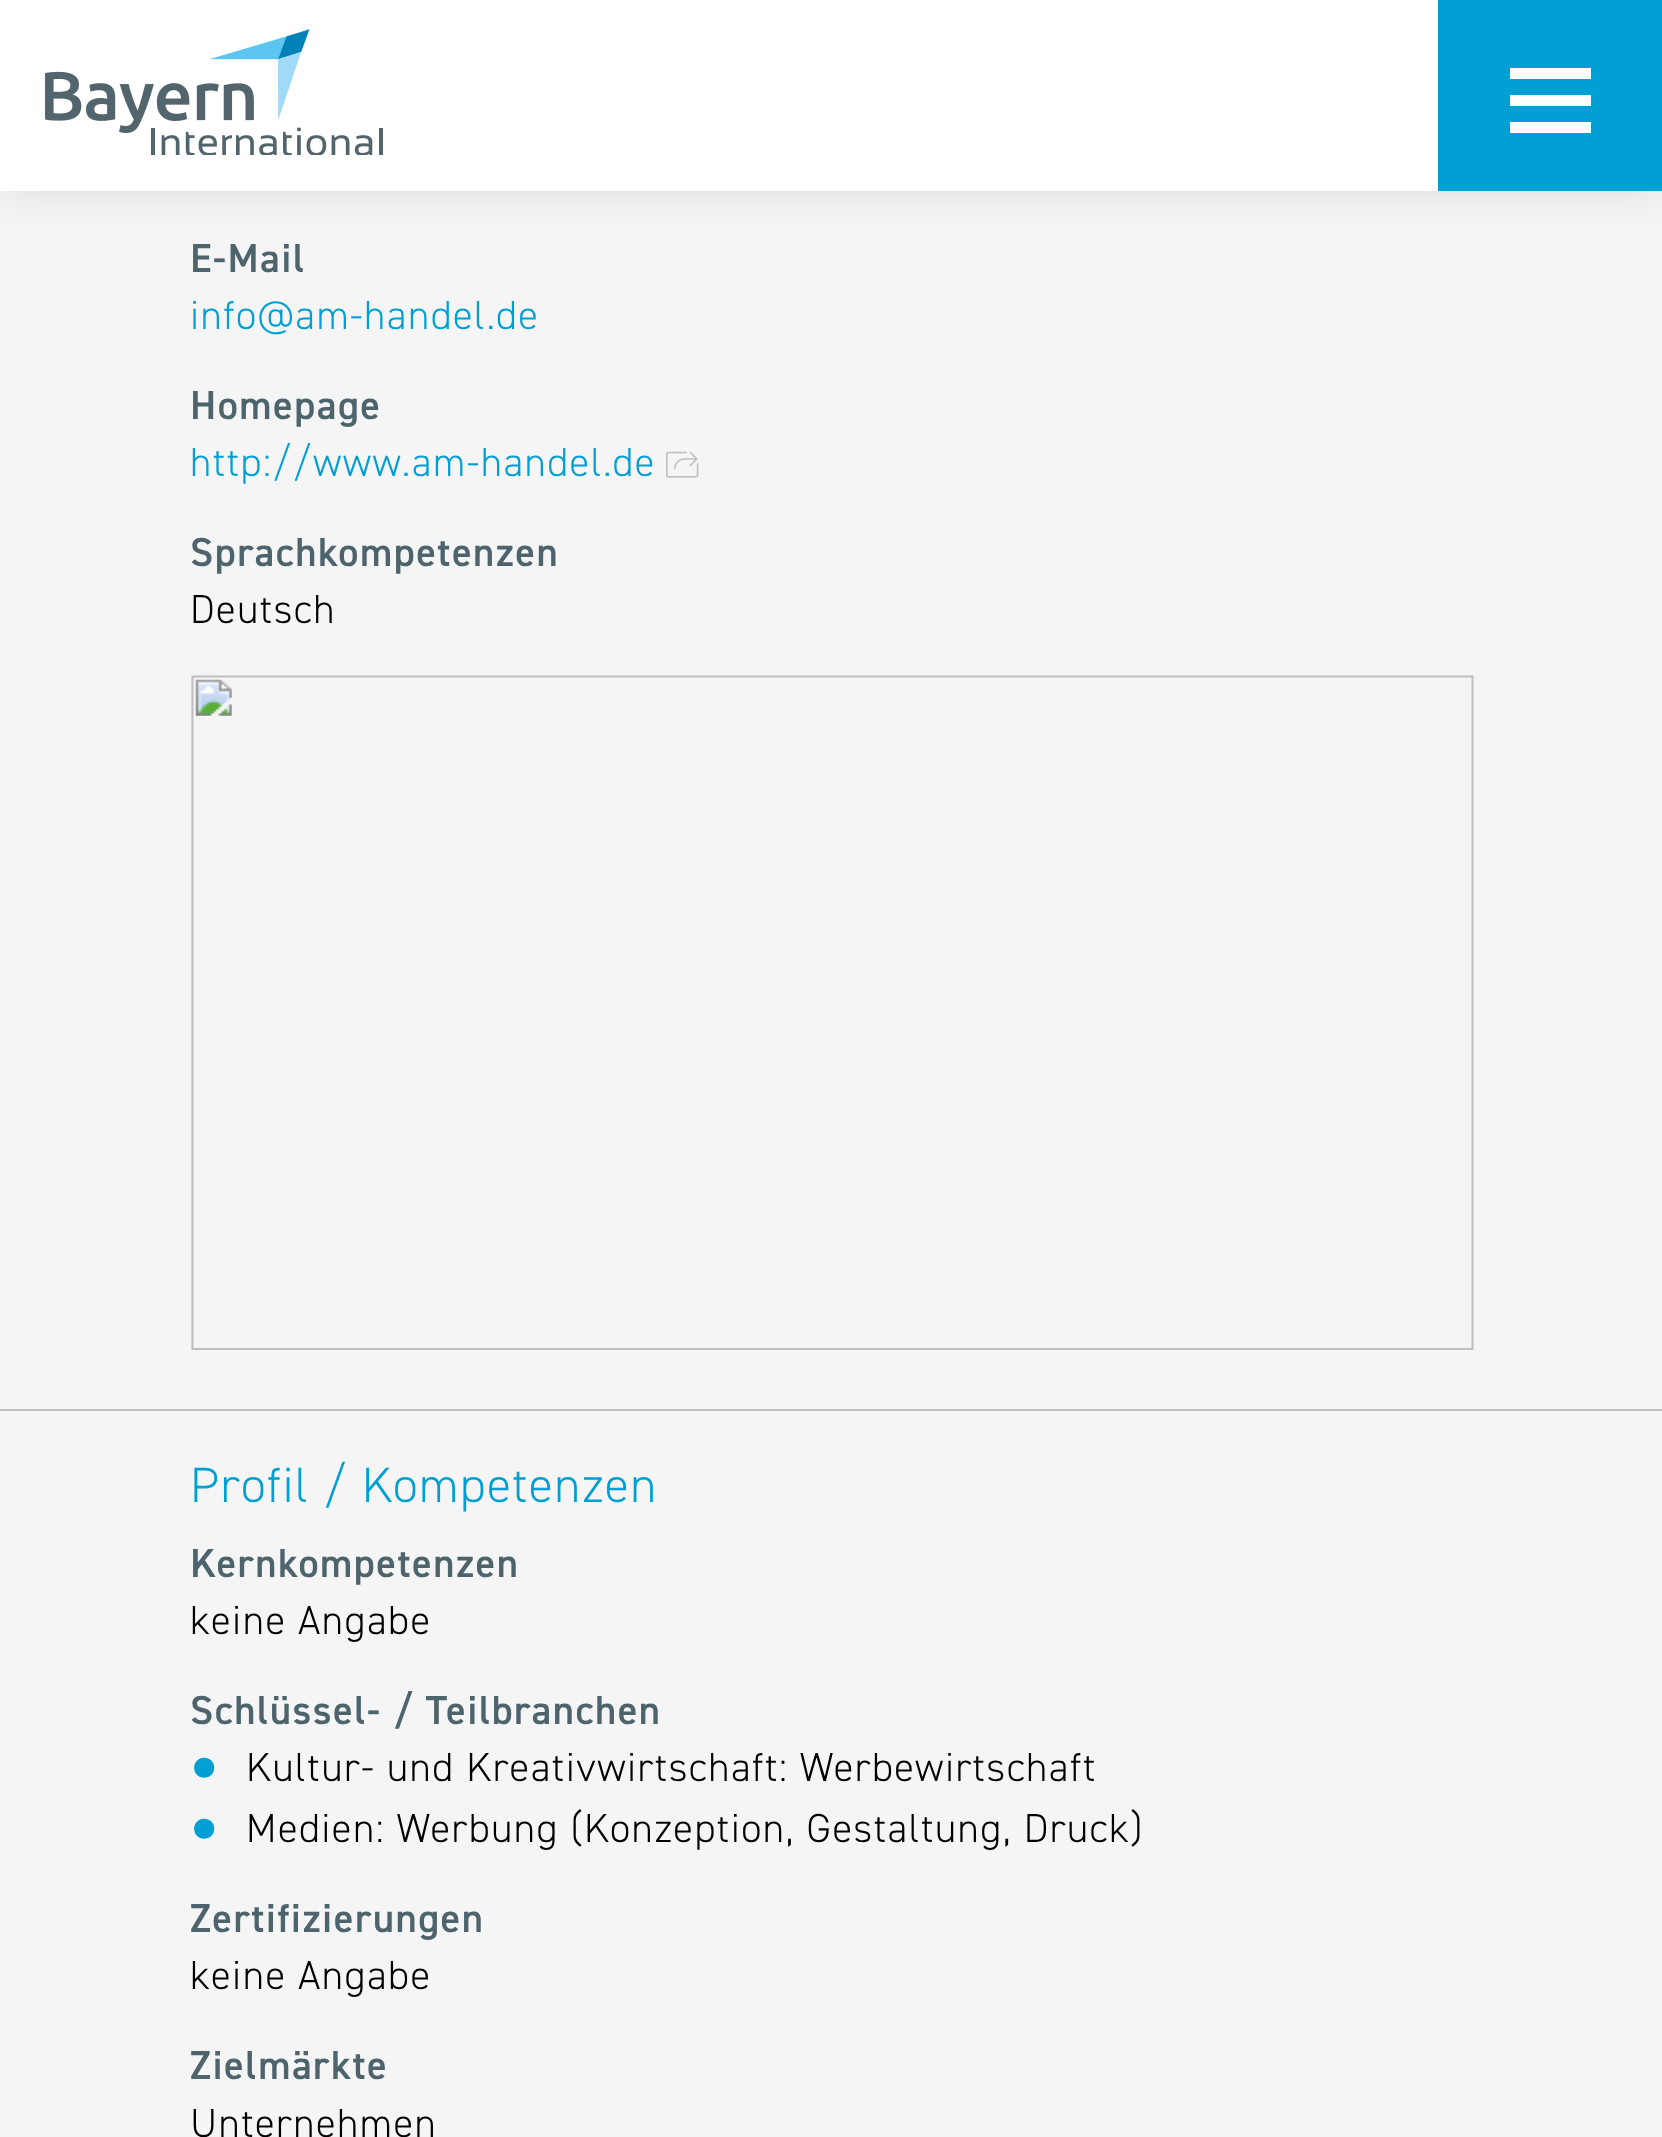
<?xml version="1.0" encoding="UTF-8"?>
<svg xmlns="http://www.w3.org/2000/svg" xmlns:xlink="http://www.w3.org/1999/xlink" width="1662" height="2137">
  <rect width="100%" height="100%" fill="#f5f5f5" />
  <rect width="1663" height="191" fill="#000000" fill-opacity="0.1" filter="blur(22.5px)" />
  <rect width="1438" height="191" fill="#ffffff" />
  <image x="45" y="29" width="338" height="126" xlink:href="image1.png" />
  <rect x="1438" width="224" height="191" fill="#009fd4" />
  <rect x="1510" y="68" width="81" height="11" fill="#ffffff" />
  <rect x="1510" y="95" width="81" height="11" fill="#ffffff" />
  <rect x="1510" y="122" width="81" height="11" fill="#ffffff" />
  <image x="666" y="451" width="33" height="27" xlink:href="image2.png" />
  <image x="191" y="675" width="1283" height="675" xlink:href="image3.png" />
  <rect y="1409" width="1662" height="2" fill="#bfbfbf" />
  <text x="190" y="272" style="font-family: 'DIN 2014'; font-size: 40.5px; font-weight: 600; letter-spacing: 1.45px; fill: #4d646d">E-Mail</text>
  <text x="190" y="329" style="font-family: 'DIN 2014'; font-size: 40.5px; font-weight: 300; letter-spacing: 1.45px; fill: #009fd4">info@am-handel.de</text>
  <text x="190" y="419" style="font-family: 'DIN 2014'; font-size: 40.5px; font-weight: 600; letter-spacing: 1.45px; fill: #4d646d">Homepage</text>
  <text x="190" y="476" style="font-family: 'DIN 2014'; font-size: 40.5px; font-weight: 300; letter-spacing: 1.45px; fill: #009fd4">http://www.am-handel.de</text>
  <text x="190" y="566" style="font-family: 'DIN 2014'; font-size: 40.5px; font-weight: 600; letter-spacing: 1.45px; fill: #4d646d">Sprachkompetenzen</text>
  <text x="190" y="623" style="font-family: 'DIN 2014'; font-size: 40.5px; font-weight: 300; letter-spacing: 1.45px; fill: #000000">Deutsch</text>
  <text x="190" y="1502" style="font-family: 'DIN 2014'; font-size: 49.5px; font-weight: 300; letter-spacing: 1.45px; fill: #009fd4">Profil / Kompetenzen</text>
  <text x="190" y="1577" style="font-family: 'DIN 2014'; font-size: 40.5px; font-weight: 600; letter-spacing: 1.45px; fill: #4d646d">Kernkompetenzen</text>
  <text x="190" y="1634" style="font-family: 'DIN 2014'; font-size: 40.5px; font-weight: 300; letter-spacing: 1.45px; fill: #000000">keine Angabe</text>
  <text x="190" y="1724" style="font-family: 'DIN 2014'; font-size: 40.5px; font-weight: 600; letter-spacing: 1.45px; fill: #4d646d">Schlüssel- / Teilbranchen</text>
  <text x="190" y="1781" style="font-family: Liberation Serif; font-size: 47px; letter-spacing: 1.45px; fill: #009fd4">●</text>
  <text x="246" y="1781" style="font-family: 'DIN 2014'; font-size: 40.5px; font-weight: 300; letter-spacing: 1.45px; fill: #000000">Kultur- und Kreativwirtschaft: Werbewirtschaft</text>
  <text x="190" y="1842" style="font-family: Liberation Serif; font-size: 47px; letter-spacing: 1.45px; fill: #009fd4">●</text>
  <text x="246" y="1842" style="font-family: 'DIN 2014'; font-size: 40.5px; font-weight: 300; letter-spacing: 1.45px; fill: #000000">Medien: Werbung (Konzeption, Gestaltung, Druck)</text>
  <text x="190" y="1932" style="font-family: 'DIN 2014'; font-size: 40.5px; font-weight: 600; letter-spacing: 1.45px; fill: #4d646d">Zertifizierungen</text>
  <text x="190" y="1989" style="font-family: 'DIN 2014'; font-size: 40.5px; font-weight: 300; letter-spacing: 1.45px; fill: #000000">keine Angabe</text>
  <text x="190" y="2079" style="font-family: 'DIN 2014'; font-size: 40.5px; font-weight: 600; letter-spacing: 1.45px; fill: #4d646d">Zielmärkte</text>
  <text x="190" y="2137" style="font-family: 'DIN 2014'; font-size: 40.5px; font-weight: 300; letter-spacing: 1.45px; fill: #000000">Unternehmen</text>
</svg>
